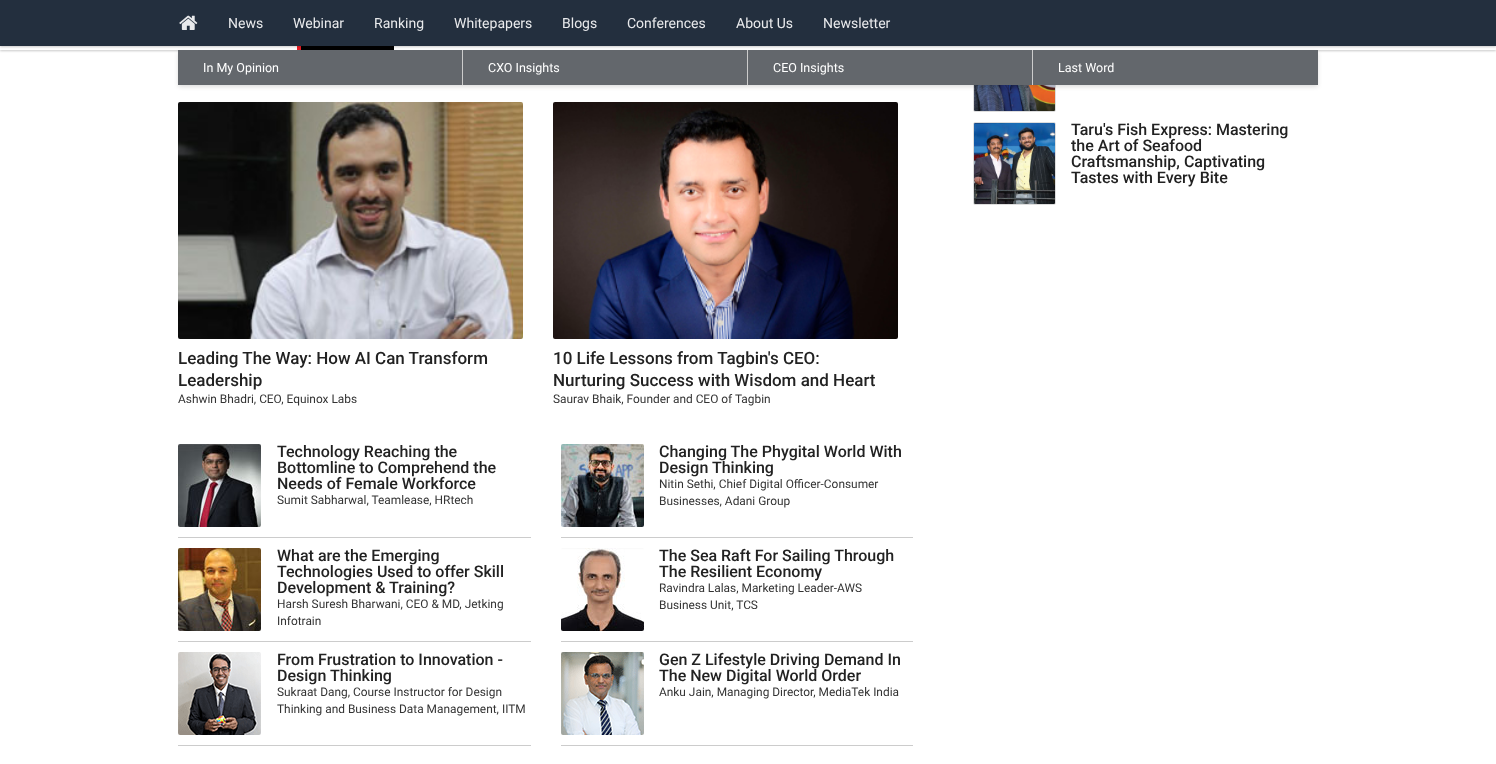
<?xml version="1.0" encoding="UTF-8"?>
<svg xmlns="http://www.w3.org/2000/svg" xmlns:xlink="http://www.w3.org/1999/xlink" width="1496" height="764">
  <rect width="100%" height="100%" fill="#ffffff" />
  <rect x="973.5" y="29.5" width="82" height="82" rx="1.5" fill="none" stroke="#dddddd" />
  <rect y="1" width="1496" height="50" fill="#000000" fill-opacity="0.21" filter="blur(1px)" />
  <rect y="46" width="1496" height="4" fill="#ffffff" />
  <rect x="301" y="46" width="93" height="4" fill="#000000" />
  <rect x="297" y="46" width="4" height="4" fill="#ee1c25" />
  <image x="974" y="85" width="81" height="26" xlink:href="image2.png" />
  <rect x="178" y="52" width="1140" height="35" rx="2" fill="#000000" fill-opacity="0.13" filter="blur(2px)" />
  <rect x="463" y="50" width="569" height="35" fill="#63676c" />
  <rect x="462" y="50" width="1" height="35" fill="#cccccc" />
  <rect x="178" y="50" width="284" height="35" fill="#63676c" />
  <rect x="747" y="50" width="1" height="35" fill="#cccccc" />
  <rect x="1032" y="50" width="1" height="35" fill="#cccccc" />
  <rect x="1033" y="50" width="285" height="35" fill="#63676c" />
  <rect y="1" width="1496" height="46" fill="#000000" fill-opacity="0.21" filter="blur(1px)" />
  <rect width="1496" height="46" fill="#232f3e" />
  <image x="179" y="15" width="19" height="15" xlink:href="image1.png" />
  <rect x="973.5" y="122.5" width="82" height="82" rx="1.5" fill="none" stroke="#dddddd" />
  <image x="974" y="123" width="81" height="81" xlink:href="image3.png" />
  <image x="178" y="102" width="345" height="237" xlink:href="image4.png" />
  <image x="553" y="102" width="345" height="237" xlink:href="image5.png" />
  <rect x="178" y="537" width="353" height="1" fill="#cccccc" />
  <image x="178" y="444" width="83" height="83" xlink:href="image6.png" />
  <rect x="561" y="537" width="352" height="1" fill="#cccccc" />
  <image x="561" y="444" width="83" height="83" xlink:href="image7.png" />
  <rect x="178" y="641" width="353" height="1" fill="#cccccc" />
  <image x="178" y="548" width="83" height="83" xlink:href="image8.png" />
  <rect x="561" y="641" width="352" height="1" fill="#cccccc" />
  <image x="561" y="548" width="83" height="83" xlink:href="image9.png" />
  <rect x="178" y="745" width="353" height="1" fill="#cccccc" />
  <image x="178" y="652" width="83" height="83" xlink:href="image10.png" />
  <rect x="561" y="745" width="352" height="1" fill="#cccccc" />
  <image x="561" y="652" width="83" height="83" xlink:href="image11.png" />
  <text x="228" y="28" style="font-family: Roboto; font-size: 14px; fill: #e9eaec">News</text>
  <text x="293" y="28" style="font-family: Roboto; font-size: 14px; fill: #e9eaec">Webinar</text>
  <text x="374" y="28" style="font-family: Roboto; font-size: 14px; fill: #e9eaec">Ranking</text>
  <text x="454" y="28" style="font-family: Roboto; font-size: 14px; fill: #e9eaec">Whitepapers</text>
  <text x="562" y="28" style="font-family: Roboto; font-size: 14px; fill: #e9eaec">Blogs</text>
  <text x="627" y="28" style="font-family: Roboto; font-size: 14px; fill: #e9eaec">Conferences</text>
  <text x="736" y="28" style="font-family: Roboto; font-size: 14px; fill: #e9eaec">About Us</text>
  <text x="823" y="28" style="font-family: Roboto; font-size: 14px; fill: #e9eaec">Newsletter</text>
  <text x="203" y="72" style="font-family: Roboto; font-size: 12.5px; fill: #ffffff">In My Opinion</text>
  <text x="488" y="72" style="font-family: Roboto; font-size: 12.5px; fill: #ffffff">CXO Insights</text>
  <text x="773" y="72" style="font-family: Roboto; font-size: 12.5px; fill: #ffffff">CEO Insights</text>
  <text x="1058" y="72" style="font-family: Roboto; font-size: 12.5px; fill: #ffffff">Last Word</text>
  <text x="1071" y="135" style="font-family: Roboto; font-size: 16px; font-weight: 500; fill: #222222">Taru's Fish Express: Mastering</text>
  <text x="1071" y="151" style="font-family: Roboto; font-size: 16px; font-weight: 500; fill: #222222">the Art of Seafood</text>
  <text x="1071" y="167" style="font-family: Roboto; font-size: 16px; font-weight: 500; fill: #222222">Craftsmanship, Captivating</text>
  <text x="1071" y="183" style="font-family: Roboto; font-size: 16px; font-weight: 500; fill: #222222">Tastes with Every Bite</text>
  <text x="178" y="364" style="font-family: Roboto; font-size: 17px; font-weight: 500; fill: #222222">Leading The Way: How AI Can Transform</text>
  <text x="178" y="386" style="font-family: Roboto; font-size: 17px; font-weight: 500; fill: #222222">Leadership</text>
  <text x="178" y="403" style="font-family: Roboto; font-size: 11.9px; fill: #333333">Ashwin Bhadri, CEO, Equinox Labs</text>
  <text x="553" y="364" style="font-family: Roboto; font-size: 17px; font-weight: 500; fill: #222222">10 Life Lessons from Tagbin's CEO:</text>
  <text x="553" y="386" style="font-family: Roboto; font-size: 17px; font-weight: 500; fill: #222222">Nurturing Success with Wisdom and Heart</text>
  <text x="553" y="403" style="font-family: Roboto; font-size: 11.9px; fill: #333333">Saurav Bhaik, Founder and CEO of Tagbin</text>
  <text x="277" y="457" style="font-family: Roboto; font-size: 16px; font-weight: 500; fill: #222222">Technology Reaching the</text>
  <text x="277" y="473" style="font-family: Roboto; font-size: 16px; font-weight: 500; fill: #222222">Bottomline to Comprehend the</text>
  <text x="277" y="489" style="font-family: Roboto; font-size: 16px; font-weight: 500; fill: #222222">Needs of Female Workforce</text>
  <text x="277" y="504" style="font-family: Roboto; font-size: 11.9px; fill: #333333">Sumit Sabharwal, Teamlease, HRtech</text>
  <text x="659" y="457" style="font-family: Roboto; font-size: 16px; font-weight: 500; fill: #222222">Changing The Phygital World With</text>
  <text x="659" y="473" style="font-family: Roboto; font-size: 16px; font-weight: 500; fill: #222222">Design Thinking</text>
  <text x="659" y="488" style="font-family: Roboto; font-size: 11.9px; fill: #333333">Nitin Sethi, Chief Digital Officer-Consumer</text>
  <text x="659" y="505" style="font-family: Roboto; font-size: 11.9px; fill: #333333">Businesses, Adani Group</text>
  <text x="277" y="561" style="font-family: Roboto; font-size: 16px; font-weight: 500; fill: #222222">What are the Emerging</text>
  <text x="277" y="577" style="font-family: Roboto; font-size: 16px; font-weight: 500; fill: #222222">Technologies Used to offer Skill</text>
  <text x="277" y="593" style="font-family: Roboto; font-size: 16px; font-weight: 500; fill: #222222">Development &amp; Training?</text>
  <text x="277" y="608" style="font-family: Roboto; font-size: 11.9px; fill: #333333">Harsh Suresh Bharwani, CEO &amp; MD, Jetking</text>
  <text x="277" y="625" style="font-family: Roboto; font-size: 11.9px; fill: #333333">Infotrain</text>
  <text x="659" y="561" style="font-family: Roboto; font-size: 16px; font-weight: 500; fill: #222222">The Sea Raft For Sailing Through</text>
  <text x="659" y="577" style="font-family: Roboto; font-size: 16px; font-weight: 500; fill: #222222">The Resilient Economy</text>
  <text x="659" y="592" style="font-family: Roboto; font-size: 11.9px; fill: #333333">Ravindra Lalas, Marketing Leader-AWS</text>
  <text x="659" y="609" style="font-family: Roboto; font-size: 11.9px; fill: #333333">Business Unit, TCS</text>
  <text x="277" y="665" style="font-family: Roboto; font-size: 16px; font-weight: 500; fill: #222222">From Frustration to Innovation -</text>
  <text x="277" y="681" style="font-family: Roboto; font-size: 16px; font-weight: 500; fill: #222222">Design Thinking</text>
  <text x="277" y="696" style="font-family: Roboto; font-size: 11.9px; fill: #333333">Sukraat Dang, Course Instructor for Design</text>
  <text x="277" y="713" style="font-family: Roboto; font-size: 11.9px; fill: #333333">Thinking and Business Data Management, IITM</text>
  <text x="659" y="665" style="font-family: Roboto; font-size: 16px; font-weight: 500; fill: #222222">Gen Z Lifestyle Driving Demand In</text>
  <text x="659" y="681" style="font-family: Roboto; font-size: 16px; font-weight: 500; fill: #222222">The New Digital World Order</text>
  <text x="659" y="696" style="font-family: Roboto; font-size: 11.9px; fill: #333333">Anku Jain, Managing Director, MediaTek India</text>
</svg>
